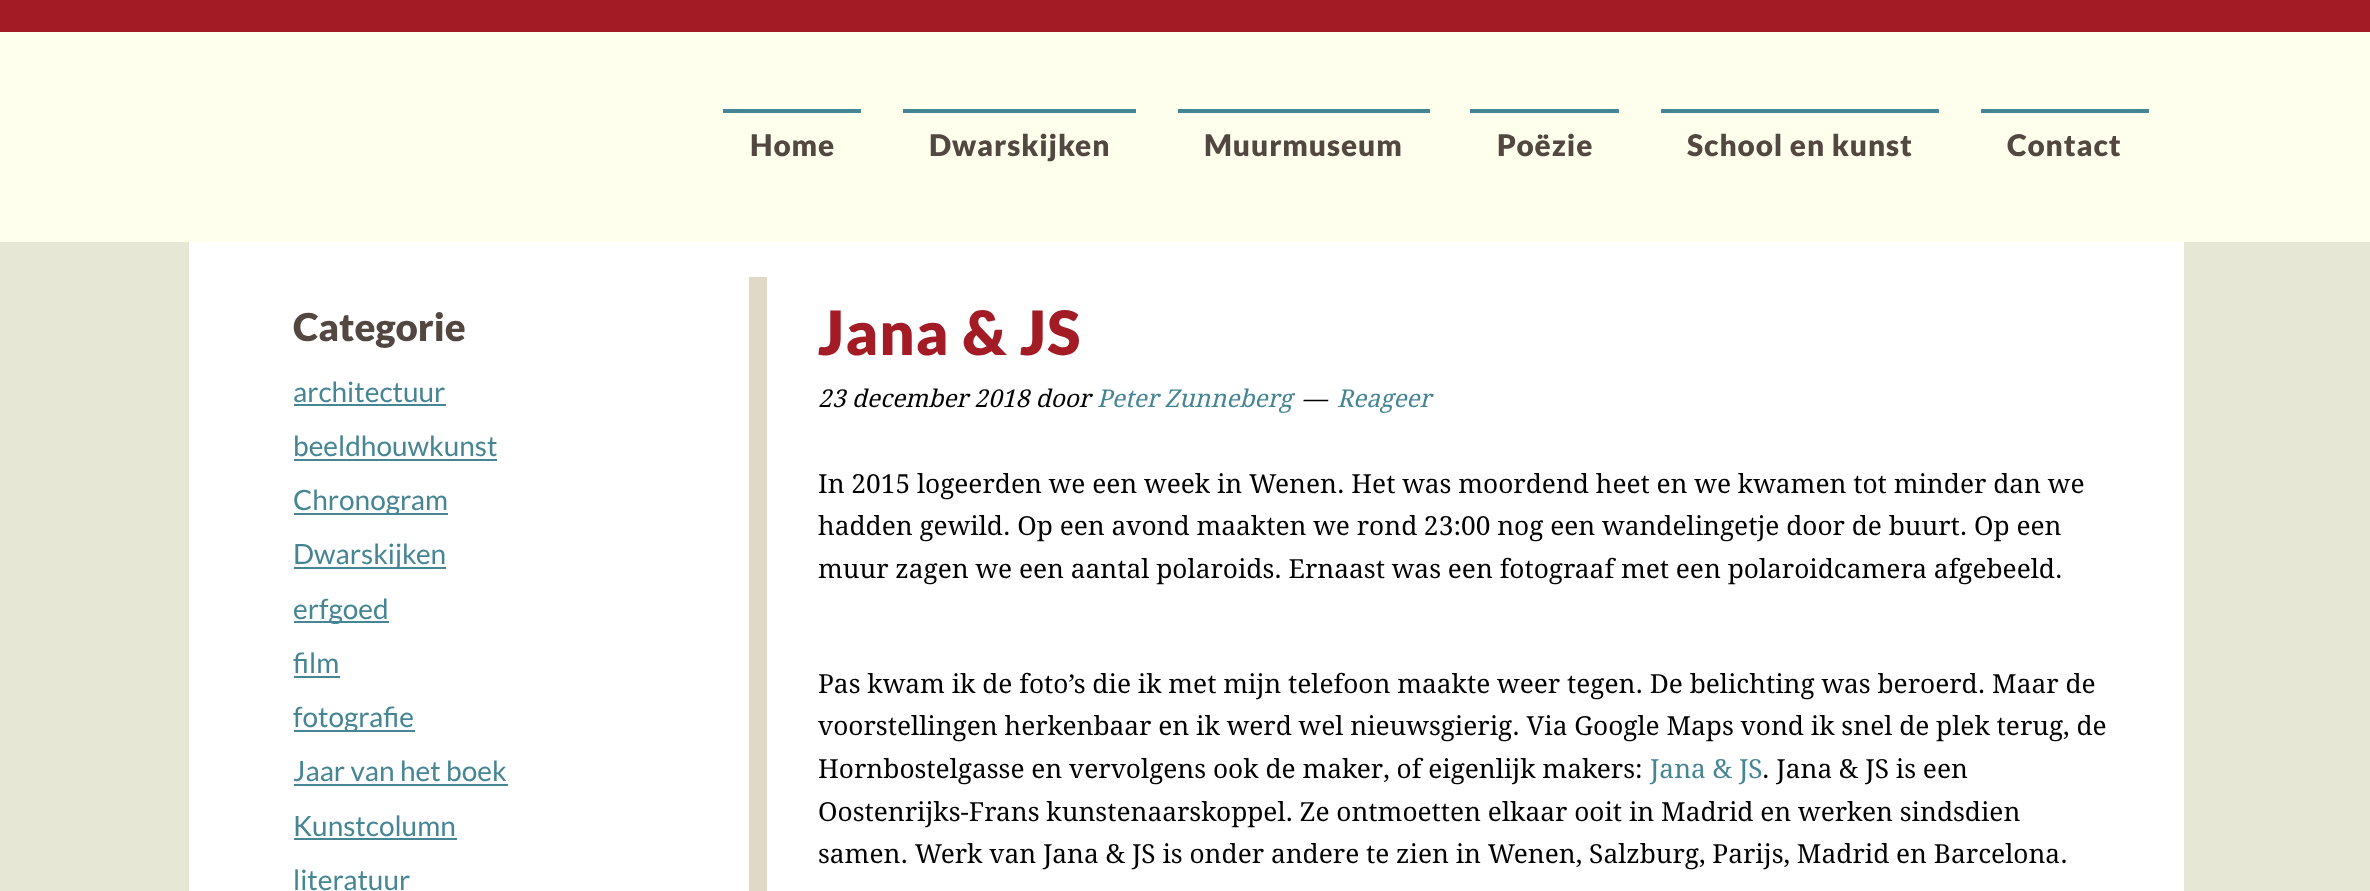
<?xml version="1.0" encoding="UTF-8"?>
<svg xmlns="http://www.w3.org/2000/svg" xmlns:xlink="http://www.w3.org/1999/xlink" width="2370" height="891">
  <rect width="100%" height="100%" fill="#e7e7d6" />
  <rect y="32" width="2370" height="210" fill="#ffffee" />
  <rect width="2370" height="32" fill="#a21b25" />
  <rect x="723" y="109" width="138" height="4" fill="#458594" />
  <rect x="903" y="109" width="233" height="4" fill="#458594" />
  <rect x="1178" y="109" width="252" height="4" fill="#458594" />
  <rect x="1470" y="109" width="149" height="4" fill="#458594" />
  <rect x="1661" y="109" width="278" height="4" fill="#458594" />
  <rect x="1981" y="109" width="168" height="4" fill="#458594" />
  <rect x="189" y="242" width="1995" height="649" fill="#ffffff" />
  <rect x="749" y="277" width="18" height="614" fill="#e0d9c8" />
  <rect x="294" y="404" width="152" height="2" fill="#458594" />
  <rect x="294" y="459" width="203" height="2" fill="#458594" />
  <rect x="294" y="513" width="154" height="2" fill="#458594" />
  <rect x="294" y="567" width="152" height="2" fill="#458594" />
  <rect x="294" y="621" width="95" height="2" fill="#458594" />
  <rect x="294" y="676" width="46" height="2" fill="#458594" />
  <rect x="294" y="730" width="121" height="2" fill="#458594" />
  <rect x="294" y="784" width="214" height="2" fill="#458594" />
  <rect x="294" y="838" width="163" height="2" fill="#458594" />
  <text x="750" y="156" style="font-family: Lato; font-size: 29.75px; font-weight: 900; letter-spacing: 0.9px; fill: #534741">Home</text>
  <text x="929" y="156" style="font-family: Lato; font-size: 29.75px; font-weight: 900; letter-spacing: 0.9px; fill: #534741">Dwarskijken</text>
  <text x="1204" y="156" style="font-family: Lato; font-size: 29.75px; font-weight: 900; letter-spacing: 0.9px; fill: #534741">Muurmuseum</text>
  <text x="1497" y="156" style="font-family: Lato; font-size: 29.75px; font-weight: 900; letter-spacing: 0.9px; fill: #534741">Poëzie</text>
  <text x="1687" y="156" style="font-family: Lato; font-size: 29.75px; font-weight: 900; letter-spacing: 0.9px; fill: #534741">School en kunst</text>
  <text x="2007" y="156" style="font-family: Lato; font-size: 29.75px; font-weight: 900; letter-spacing: 0.9px; fill: #534741">Contact</text>
  <text x="293" y="341" style="font-family: Lato; font-size: 38.5px; font-weight: 900; fill: #534741">Categorie</text>
  <text x="293" y="402" style="font-family: Lato; font-size: 28px; fill: #458594">architectuur</text>
  <text x="293" y="456" style="font-family: Lato; font-size: 28px; fill: #458594">beeldhouwkunst</text>
  <text x="293" y="510" style="font-family: Lato; font-size: 28px; fill: #458594">Chronogram</text>
  <text x="293" y="564" style="font-family: Lato; font-size: 28px; fill: #458594">Dwarskijken</text>
  <text x="293" y="619" style="font-family: Lato; font-size: 28px; fill: #458594">erfgoed</text>
  <text x="293" y="673" style="font-family: Lato; font-size: 28px; fill: #458594">film</text>
  <text x="293" y="727" style="font-family: Lato; font-size: 28px; fill: #458594">fotografie</text>
  <text x="293" y="781" style="font-family: Lato; font-size: 28px; fill: #458594">Jaar van het boek</text>
  <text x="293" y="836" style="font-family: Lato; font-size: 28px; fill: #458594">Kunstcolumn</text>
  <text x="293" y="890" style="font-family: Lato; font-size: 28px; fill: #458594">literatuur</text>
  <text x="818" y="355" style="font-family: Lato; font-size: 61.25px; font-weight: 900; letter-spacing: 0.9px; fill: #a21b25">Jana &amp; JS</text>
  <text x="818" y="407" style="font-family: Droid Serif; font-size: 24.5px; font-style: italic; fill: #000000">23 december 2018 door</text>
  <text x="1097" y="407" style="font-family: Droid Serif; font-size: 24.5px; font-style: italic; fill: #458594">Peter Zunneberg</text>
  <text x="1302" y="407" style="font-family: Droid Serif; font-size: 24.5px; font-style: italic; fill: #000000">—</text>
  <text x="1337" y="407" style="font-family: Droid Serif; font-size: 24.5px; font-style: italic; fill: #458594">Reageer</text>
  <text x="818" y="493" style="font-family: Droid Serif; font-size: 26.25px; fill: #000000">In 2015 logeerden we een week in Wenen. Het was moordend heet en we kwamen tot minder dan we</text>
  <text x="818" y="535" style="font-family: Droid Serif; font-size: 26.25px; fill: #000000">hadden gewild. Op een avond maakten we rond 23:00 nog een wandelingetje door de buurt. Op een</text>
  <text x="818" y="578" style="font-family: Droid Serif; font-size: 26.25px; fill: #000000">muur zagen we een aantal polaroids. Ernaast was een fotograaf met een polaroidcamera afgebeeld.</text>
  <text x="818" y="693" style="font-family: Droid Serif; font-size: 26.25px; fill: #000000">Pas kwam ik de foto’s die ik met mijn telefoon maakte weer tegen. De belichting was beroerd. Maar de</text>
  <text x="818" y="735" style="font-family: Droid Serif; font-size: 26.25px; fill: #000000">voorstellingen herkenbaar en ik werd wel nieuwsgierig. Via Google Maps vond ik snel de plek terug, de</text>
  <text x="818" y="778" style="font-family: Droid Serif; font-size: 26.25px; fill: #000000">Hornbostelgasse en vervolgens ook de maker, of eigenlijk makers:</text>
  <text x="1650" y="778" style="font-family: Droid Serif; font-size: 26.25px; fill: #458594">Jana &amp; JS</text>
  <text x="1762" y="778" style="font-family: Droid Serif; font-size: 26.25px; fill: #000000">. Jana &amp; JS is een</text>
  <text x="818" y="821" style="font-family: Droid Serif; font-size: 26.25px; fill: #000000">Oostenrijks-Frans kunstenaarskoppel. Ze ontmoetten elkaar ooit in Madrid en werken sindsdien</text>
  <text x="818" y="863" style="font-family: Droid Serif; font-size: 26.25px; fill: #000000">samen. Werk van Jana &amp; JS is onder andere te zien in Wenen, Salzburg, Parijs, Madrid en Barcelona.</text>
</svg>
